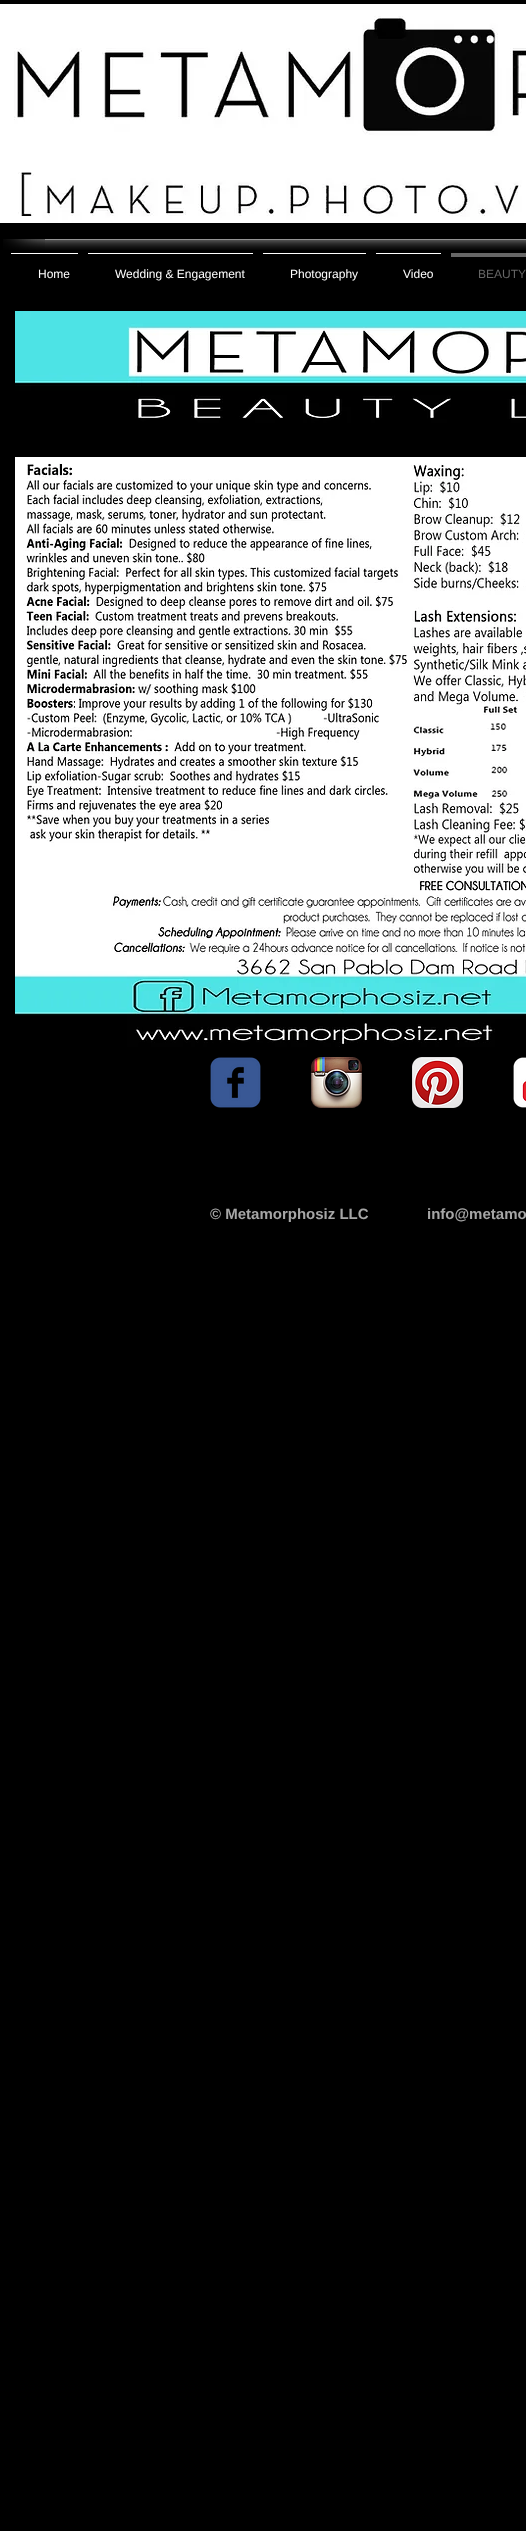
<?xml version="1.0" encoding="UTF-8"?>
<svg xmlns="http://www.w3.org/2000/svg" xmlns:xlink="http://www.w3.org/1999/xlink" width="526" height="2531">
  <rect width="100%" height="100%" fill="#000000" />
  <image x="0" y="4" width="526" height="219" xlink:href="image1.png" />
  <image x="45" y="239" width="481" height="11" xlink:href="image2.png" />
  <image x="3" y="239" width="42" height="11" xlink:href="image3.png" />
  <rect x="11" y="253" width="67" height="1" fill="#ffffff" />
  <rect x="88" y="253" width="165" height="1" fill="#ffffff" />
  <rect x="263" y="253" width="103" height="1" fill="#ffffff" />
  <rect x="376" y="253" width="65" height="1" fill="#ffffff" />
  <rect x="451" y="253" width="75" height="4" fill="#666666" />
  <image x="15" y="311" width="511" height="736" xlink:href="image4.png" />
  <image x="210" y="1057" width="51" height="51" xlink:href="image5.png" />
  <image x="311" y="1057" width="51" height="51" xlink:href="image6.png" />
  <image x="412" y="1057" width="51" height="51" xlink:href="image7.png" />
  <image x="513" y="1057" width="13" height="51" xlink:href="image8.png" />
  <text x="38" y="278" style="font-family: Liberation Sans; font-size: 12px; fill: #ffffff">Home</text>
  <text x="115" y="278" style="font-family: Liberation Sans; font-size: 12px; fill: #ffffff">Wedding &amp; Engagement</text>
  <text x="290" y="278" style="font-family: Liberation Sans; font-size: 12px; fill: #ffffff">Photography</text>
  <text x="403" y="278" style="font-family: Liberation Sans; font-size: 12px; fill: #ffffff">Video</text>
  <text x="478" y="278" style="font-family: Liberation Sans; font-size: 12px; fill: #666666">BEAUTY</text>
  <text x="210" y="1219" style="font-family: Liberation Sans; font-size: 15px; font-weight: bold; fill: #a6a6a6">© Metamorphosiz LLC</text>
  <text x="427" y="1219" style="font-family: Liberation Sans; font-size: 15px; font-weight: bold; fill: #a6a6a6">info@metamo</text>
</svg>
